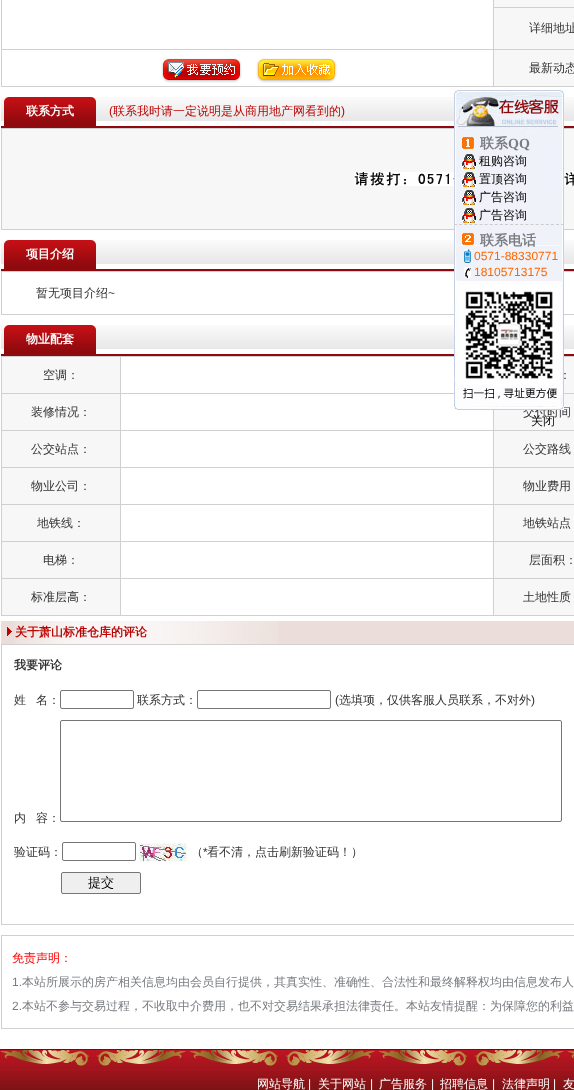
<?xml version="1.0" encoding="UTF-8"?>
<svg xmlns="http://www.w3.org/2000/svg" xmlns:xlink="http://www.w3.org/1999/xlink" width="574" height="1090">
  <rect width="100%" height="100%" fill="#ffffff" />
  <rect x="1" width="573" height="87" fill="#d0d0d0" />
  <rect x="2" width="491" height="49" fill="#ffffff" />
  <rect x="494" width="80" height="7" fill="#f7f7f7" />
  <rect x="494" y="8" width="80" height="41" fill="#f7f7f7" />
  <rect x="2" y="50" width="491" height="36" fill="#ffffff" />
  <image x="161" y="58" width="81" height="25" xlink:href="image1.png" />
  <image x="255" y="58" width="82" height="25" xlink:href="image2.png" />
  <rect x="494" y="50" width="80" height="36" fill="#f7f7f7" />
  <image x="1" y="97" width="573" height="24" xlink:href="image3.png" />
  <rect x="1" y="126" width="573" height="2" fill="#8e0a0e" />
  <image x="4" y="97" width="92" height="29" xlink:href="image4.png" />
  <rect x="1" y="128" width="573" height="102" fill="#d0d0d0" />
  <rect x="2" y="129" width="572" height="100" fill="#f7f7f7" />
  <image x="354" y="172" width="220" height="14" xlink:href="image5.png" />
  <image x="1" y="240" width="573" height="24" xlink:href="image3.png" />
  <rect x="1" y="269" width="573" height="2" fill="#8e0a0e" />
  <image x="4" y="240" width="92" height="29" xlink:href="image4.png" />
  <rect x="1" y="271" width="573" height="44" fill="#d0d0d0" />
  <rect x="2" y="272" width="572" height="42" fill="#ffffff" />
  <image x="1" y="325" width="573" height="24" xlink:href="image3.png" />
  <rect x="1" y="354" width="573" height="2" fill="#8e0a0e" />
  <image x="4" y="325" width="92" height="29" xlink:href="image4.png" />
  <rect x="1" y="356" width="573" height="260" fill="#d0d0d0" />
  <rect x="2" y="357" width="118" height="36" fill="#f7f7f7" />
  <rect x="121" y="357" width="333" height="36" fill="#ffffff" />
  <rect x="564" y="357" width="10" height="36" fill="#f7f7f7" />
  <rect x="2" y="394" width="118" height="36" fill="#f7f7f7" />
  <rect x="121" y="394" width="372" height="36" fill="#ffffff" />
  <rect x="494" y="394" width="80" height="36" fill="#f7f7f7" />
  <rect x="2" y="431" width="118" height="36" fill="#f7f7f7" />
  <rect x="121" y="431" width="372" height="36" fill="#ffffff" />
  <rect x="494" y="431" width="80" height="36" fill="#f7f7f7" />
  <rect x="2" y="468" width="118" height="36" fill="#f7f7f7" />
  <rect x="121" y="468" width="372" height="36" fill="#ffffff" />
  <rect x="494" y="468" width="80" height="36" fill="#f7f7f7" />
  <rect x="2" y="505" width="118" height="36" fill="#f7f7f7" />
  <rect x="121" y="505" width="372" height="36" fill="#ffffff" />
  <rect x="494" y="505" width="80" height="36" fill="#f7f7f7" />
  <rect x="2" y="542" width="118" height="36" fill="#f7f7f7" />
  <rect x="121" y="542" width="372" height="36" fill="#ffffff" />
  <rect x="494" y="542" width="80" height="36" fill="#f7f7f7" />
  <rect x="2" y="579" width="118" height="36" fill="#f7f7f7" />
  <rect x="121" y="579" width="372" height="36" fill="#ffffff" />
  <rect x="494" y="579" width="80" height="36" fill="#f7f7f7" />
  <rect x="1" y="621" width="573" height="23" fill="#ebdeda" />
  <image x="15" y="621" width="264" height="23" xlink:href="image6.png" />
  <image x="7" y="627" width="5" height="9" xlink:href="image7.png" />
  <rect x="1.5" y="644.5" width="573" height="280" fill="none" stroke="#d0d0d0" />
  <rect x="60.5" y="690.5" width="73" height="18" rx="1.5" fill="none" stroke="#767676" />
  <rect x="197.5" y="690.5" width="133" height="18" rx="1.5" fill="none" stroke="#767676" />
  <rect x="60.5" y="720.5" width="501" height="101" rx="1.5" fill="none" stroke="#767676" />
  <rect x="62.5" y="842.5" width="73" height="18" rx="1.5" fill="none" stroke="#767676" />
  <image x="139" y="843" width="48" height="19" xlink:href="image8.png" />
  <rect x="61.5" y="872.5" width="79" height="21" rx="1.5" fill="#efefef" stroke="#767676" />
  <rect x="1.5" y="935.5" width="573" height="93" fill="none" stroke="#d0d0d0" />
  <image x="0" y="1049" width="574" height="41" xlink:href="image9.png" />
  <image x="454" y="90" width="110" height="44" xlink:href="image10.png" />
  <image x="454" y="134" width="110" height="146" xlink:href="image11.png" />
  <image x="462" y="137" width="12" height="12" xlink:href="image12.png" />
  <path d="M 454 224.5 h 110" fill="none" stroke="#cccccc" stroke-dasharray="3 2.1" />
  <image x="462" y="154" width="14" height="15" xlink:href="image13.png" />
  <image x="462" y="172" width="14" height="15" xlink:href="image13.png" />
  <image x="462" y="190" width="14" height="15" xlink:href="image13.png" />
  <image x="462" y="208" width="14" height="15" xlink:href="image13.png" />
  <image x="462" y="233" width="12" height="12" xlink:href="image14.png" />
  <image x="464" y="249" width="7" height="14" xlink:href="image15.png" />
  <image x="464" y="267" width="7" height="11" xlink:href="image16.png" />
  <text x="529" y="32" style="font-family: WenQuanYi Zen Hei; font-size: 12px; font-weight: 500; fill: #333333">详细地址</text>
  <text x="529" y="72" style="font-family: WenQuanYi Zen Hei; font-size: 12px; font-weight: 500; fill: #333333">最新动态</text>
  <text x="26" y="115" style="font-family: WenQuanYi Zen Hei; font-size: 12px; font-weight: bold; fill: #ffffff">联系方式</text>
  <text x="109" y="115" style="font-family: Liberation Sans; font-size: 12px; fill: #bb0505">(</text>
  <text x="113" y="115" style="font-family: WenQuanYi Zen Hei; font-size: 12px; font-weight: 500; fill: #bb0505">联系我时请一定说明是从商用地产网看到的</text>
  <text x="341" y="115" style="font-family: Liberation Sans; font-size: 12px; fill: #bb0505">)</text>
  <text x="26" y="258" style="font-family: WenQuanYi Zen Hei; font-size: 12px; font-weight: bold; fill: #ffffff">项目介绍</text>
  <text x="36" y="297" style="font-family: WenQuanYi Zen Hei; font-size: 12px; font-weight: 500; fill: #333333">暂无项目介绍</text>
  <text x="108" y="297" style="font-family: Liberation Sans; font-size: 12px; fill: #333333">~</text>
  <text x="26" y="343" style="font-family: WenQuanYi Zen Hei; font-size: 12px; font-weight: bold; fill: #ffffff">物业配套</text>
  <text x="43" y="379" style="font-family: WenQuanYi Zen Hei; font-size: 12px; font-weight: 500; fill: #333333">空调：</text>
  <text x="559" y="379" style="font-family: WenQuanYi Zen Hei; font-size: 12px; font-weight: 500; fill: #333333">：</text>
  <text x="31" y="416" style="font-family: WenQuanYi Zen Hei; font-size: 12px; font-weight: 500; fill: #333333">装修情况：</text>
  <text x="523" y="416" style="font-family: WenQuanYi Zen Hei; font-size: 12px; font-weight: 500; fill: #333333">交付时间</text>
  <text x="31" y="453" style="font-family: WenQuanYi Zen Hei; font-size: 12px; font-weight: 500; fill: #333333">公交站点：</text>
  <text x="523" y="453" style="font-family: WenQuanYi Zen Hei; font-size: 12px; font-weight: 500; fill: #333333">公交路线</text>
  <text x="31" y="490" style="font-family: WenQuanYi Zen Hei; font-size: 12px; font-weight: 500; fill: #333333">物业公司：</text>
  <text x="523" y="490" style="font-family: WenQuanYi Zen Hei; font-size: 12px; font-weight: 500; fill: #333333">物业费用</text>
  <text x="37" y="527" style="font-family: WenQuanYi Zen Hei; font-size: 12px; font-weight: 500; fill: #333333">地铁线：</text>
  <text x="523" y="527" style="font-family: WenQuanYi Zen Hei; font-size: 12px; font-weight: 500; fill: #333333">地铁站点</text>
  <text x="43" y="564" style="font-family: WenQuanYi Zen Hei; font-size: 12px; font-weight: 500; fill: #333333">电梯：</text>
  <text x="529" y="564" style="font-family: WenQuanYi Zen Hei; font-size: 12px; font-weight: 500; fill: #333333">层面积：</text>
  <text x="31" y="601" style="font-family: WenQuanYi Zen Hei; font-size: 12px; font-weight: 500; fill: #333333">标准层高：</text>
  <text x="523" y="601" style="font-family: WenQuanYi Zen Hei; font-size: 12px; font-weight: 500; fill: #333333">土地性质</text>
  <text x="15" y="636" style="font-family: WenQuanYi Zen Hei; font-size: 12px; font-weight: bold; fill: #bb0505">关于萧山标准仓库的评论</text>
  <text x="14" y="669" style="font-family: WenQuanYi Zen Hei; font-size: 12px; font-weight: bold; fill: #333333">我要评论</text>
  <text x="14" y="704" style="font-family: WenQuanYi Zen Hei; font-size: 12px; font-weight: 500; fill: #333333">姓</text>
  <text x="36" y="704" style="font-family: WenQuanYi Zen Hei; font-size: 12px; font-weight: 500; fill: #333333">名：</text>
  <text x="137" y="704" style="font-family: WenQuanYi Zen Hei; font-size: 12px; font-weight: 500; fill: #333333">联系方式：</text>
  <text x="335" y="704" style="font-family: Liberation Sans; font-size: 12px; fill: #333333">(</text>
  <text x="339" y="704" style="font-family: WenQuanYi Zen Hei; font-size: 12px; font-weight: 500; fill: #333333">选填项，仅供客服人员联系，不对外</text>
  <text x="531" y="704" style="font-family: Liberation Sans; font-size: 12px; fill: #333333">)</text>
  <text x="14" y="822" style="font-family: WenQuanYi Zen Hei; font-size: 12px; font-weight: 500; fill: #333333">内</text>
  <text x="36" y="822" style="font-family: WenQuanYi Zen Hei; font-size: 12px; font-weight: 500; fill: #333333">容：</text>
  <text x="14" y="856" style="font-family: WenQuanYi Zen Hei; font-size: 12px; font-weight: 500; fill: #333333">验证码：</text>
  <text x="191" y="856" style="font-family: WenQuanYi Zen Hei; font-size: 12px; font-weight: 500; fill: #333333">（</text>
  <text x="203" y="856" style="font-family: Liberation Sans; font-size: 12px; fill: #333333">*</text>
  <text x="207" y="856" style="font-family: WenQuanYi Zen Hei; font-size: 12px; font-weight: 500; fill: #333333">看不清，点击刷新验证码！）</text>
  <text x="88" y="887" style="font-family: WenQuanYi Zen Hei; font-size: 13px; font-weight: 500; fill: #000000">提交</text>
  <text x="12" y="962" style="font-family: WenQuanYi Zen Hei; font-size: 12px; font-weight: 500; fill: #ff0000">免责声明：</text>
  <text x="12" y="986" style="font-family: Liberation Sans; font-size: 12px; fill: #797c80">1.</text>
  <text x="22" y="986" style="font-family: WenQuanYi Zen Hei; font-size: 12px; font-weight: 500; fill: #797c80">本站所展示的房产相关信息均由会员自行提供，其真实性、准确性、合法性和最终解释权均由信息发布人</text>
  <text x="12" y="1010" style="font-family: Liberation Sans; font-size: 12px; fill: #797c80">2.</text>
  <text x="22" y="1010" style="font-family: WenQuanYi Zen Hei; font-size: 12px; font-weight: 500; fill: #797c80">本站不参与交易过程，不收取中介费用，也不对交易结果承担法律责任。本站友情提醒：为保障您的利益</text>
  <text x="257" y="1088" style="font-family: WenQuanYi Zen Hei; font-size: 12px; font-weight: 500; fill: #ffffff">网站导航</text>
  <text x="308" y="1088" style="font-family: Liberation Sans; font-size: 12px; fill: #ffffff">|</text>
  <text x="318" y="1088" style="font-family: WenQuanYi Zen Hei; font-size: 12px; font-weight: 500; fill: #ffffff">关于网站</text>
  <text x="370" y="1088" style="font-family: Liberation Sans; font-size: 12px; fill: #ffffff">|</text>
  <text x="379" y="1088" style="font-family: WenQuanYi Zen Hei; font-size: 12px; font-weight: 500; fill: #ffffff">广告服务</text>
  <text x="431" y="1088" style="font-family: Liberation Sans; font-size: 12px; fill: #ffffff">|</text>
  <text x="440" y="1088" style="font-family: WenQuanYi Zen Hei; font-size: 12px; font-weight: 500; fill: #ffffff">招聘信息</text>
  <text x="492" y="1088" style="font-family: Liberation Sans; font-size: 12px; fill: #ffffff">|</text>
  <text x="502" y="1088" style="font-family: WenQuanYi Zen Hei; font-size: 12px; font-weight: 500; fill: #ffffff">法律声明</text>
  <text x="553" y="1088" style="font-family: Liberation Sans; font-size: 12px; fill: #ffffff">|</text>
  <text x="563" y="1088" style="font-family: WenQuanYi Zen Hei; font-size: 12px; font-weight: 500; fill: #ffffff">友</text>
  <text x="480" y="148" style="font-family: WenQuanYi Zen Hei; font-size: 14px; font-weight: bold; fill: #797c80">联系</text>
  <text x="508" y="148" style="font-family: Liberation Serif; font-size: 14px; font-weight: bold; fill: #797c80">QQ</text>
  <text x="479" y="165" style="font-family: WenQuanYi Zen Hei; font-size: 12px; font-weight: 500; fill: #000000">租购咨询</text>
  <text x="479" y="183" style="font-family: WenQuanYi Zen Hei; font-size: 12px; font-weight: 500; fill: #000000">置顶咨询</text>
  <text x="479" y="201" style="font-family: WenQuanYi Zen Hei; font-size: 12px; font-weight: 500; fill: #000000">广告咨询</text>
  <text x="479" y="219" style="font-family: WenQuanYi Zen Hei; font-size: 12px; font-weight: 500; fill: #000000">广告咨询</text>
  <text x="480" y="245" style="font-family: WenQuanYi Zen Hei; font-size: 14px; font-weight: bold; fill: #797c80">联系电话</text>
  <text x="474" y="260" style="font-family: Liberation Sans; font-size: 12px; fill: #ff6600">0571-88330771</text>
  <text x="474" y="276" style="font-family: Liberation Sans; font-size: 12px; fill: #ff6600">18105713175</text>
  <image x="454" y="280" width="110" height="130" xlink:href="image17.png" />
  <text x="531" y="425" style="font-family: WenQuanYi Zen Hei; font-size: 12px; font-weight: 500; fill: #000000">关闭</text>
</svg>
